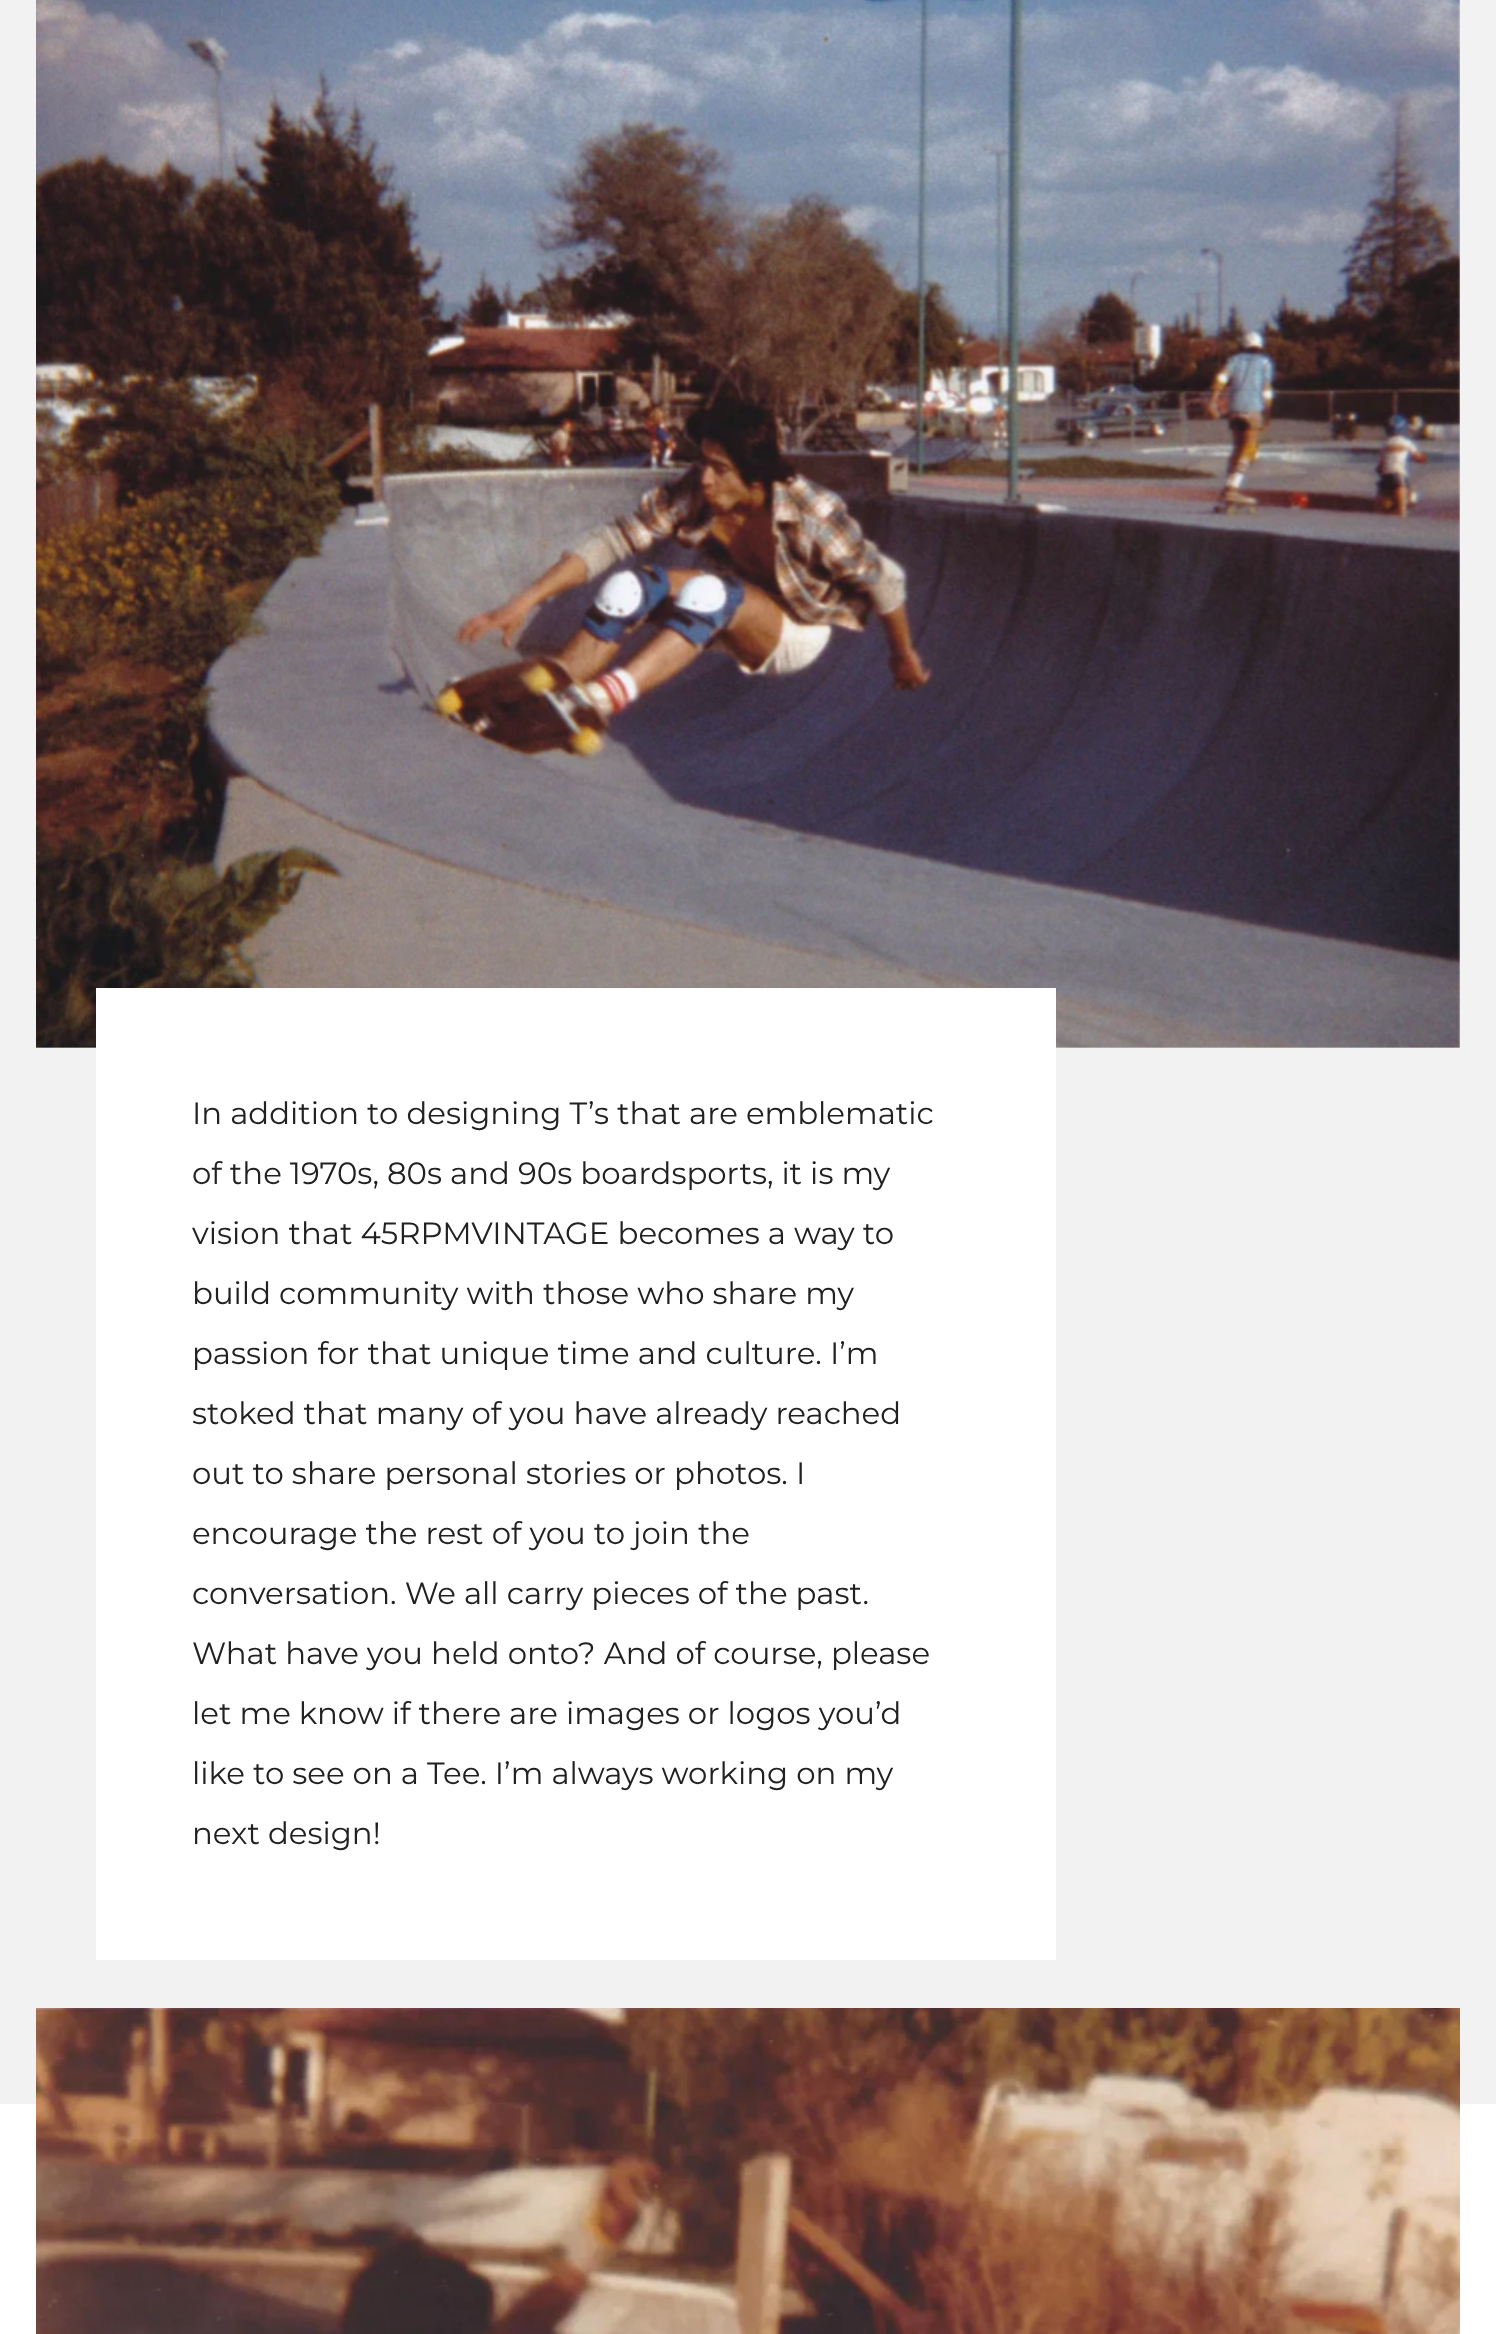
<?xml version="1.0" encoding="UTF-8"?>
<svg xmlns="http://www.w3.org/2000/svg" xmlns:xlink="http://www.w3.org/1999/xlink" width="1496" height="2334">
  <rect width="100%" height="100%" fill="#ffffff" />
  <rect width="1496" height="2104" fill="#f2f2f2" />
  <image x="36" y="0" width="1424" height="1048" xlink:href="image1.png" />
  <rect x="96" y="988" width="960" height="972" fill="#ffffff" />
  <image x="36" y="2008" width="1424" height="326" xlink:href="image2.png" />
  <text x="192" y="1124" style="font-family: Montserrat; font-size: 30.8px; fill: #212121">In addition to designing T’s that are emblematic</text>
  <text x="192" y="1184" style="font-family: Montserrat; font-size: 30.8px; fill: #212121">of the 1970s, 80s and 90s boardsports, it is my</text>
  <text x="192" y="1244" style="font-family: Montserrat; font-size: 30.8px; fill: #212121">vision that 45RPMVINTAGE becomes a way to</text>
  <text x="192" y="1304" style="font-family: Montserrat; font-size: 30.8px; fill: #212121">build community with those who share my</text>
  <text x="192" y="1364" style="font-family: Montserrat; font-size: 30.8px; fill: #212121">passion for that unique time and culture. I’m</text>
  <text x="192" y="1424" style="font-family: Montserrat; font-size: 30.8px; fill: #212121">stoked that many of you have already reached</text>
  <text x="192" y="1484" style="font-family: Montserrat; font-size: 30.8px; fill: #212121">out to share personal stories or photos. I</text>
  <text x="192" y="1544" style="font-family: Montserrat; font-size: 30.8px; fill: #212121">encourage the rest of you to join the</text>
  <text x="192" y="1604" style="font-family: Montserrat; font-size: 30.8px; fill: #212121">conversation. We all carry pieces of the past.</text>
  <text x="192" y="1664" style="font-family: Montserrat; font-size: 30.8px; fill: #212121">What have you held onto? And of course, please</text>
  <text x="192" y="1724" style="font-family: Montserrat; font-size: 30.8px; fill: #212121">let me know if there are images or logos you’d</text>
  <text x="192" y="1784" style="font-family: Montserrat; font-size: 30.8px; fill: #212121">like to see on a Tee. I’m always working on my</text>
  <text x="192" y="1844" style="font-family: Montserrat; font-size: 30.8px; fill: #212121">next design!</text>
</svg>
